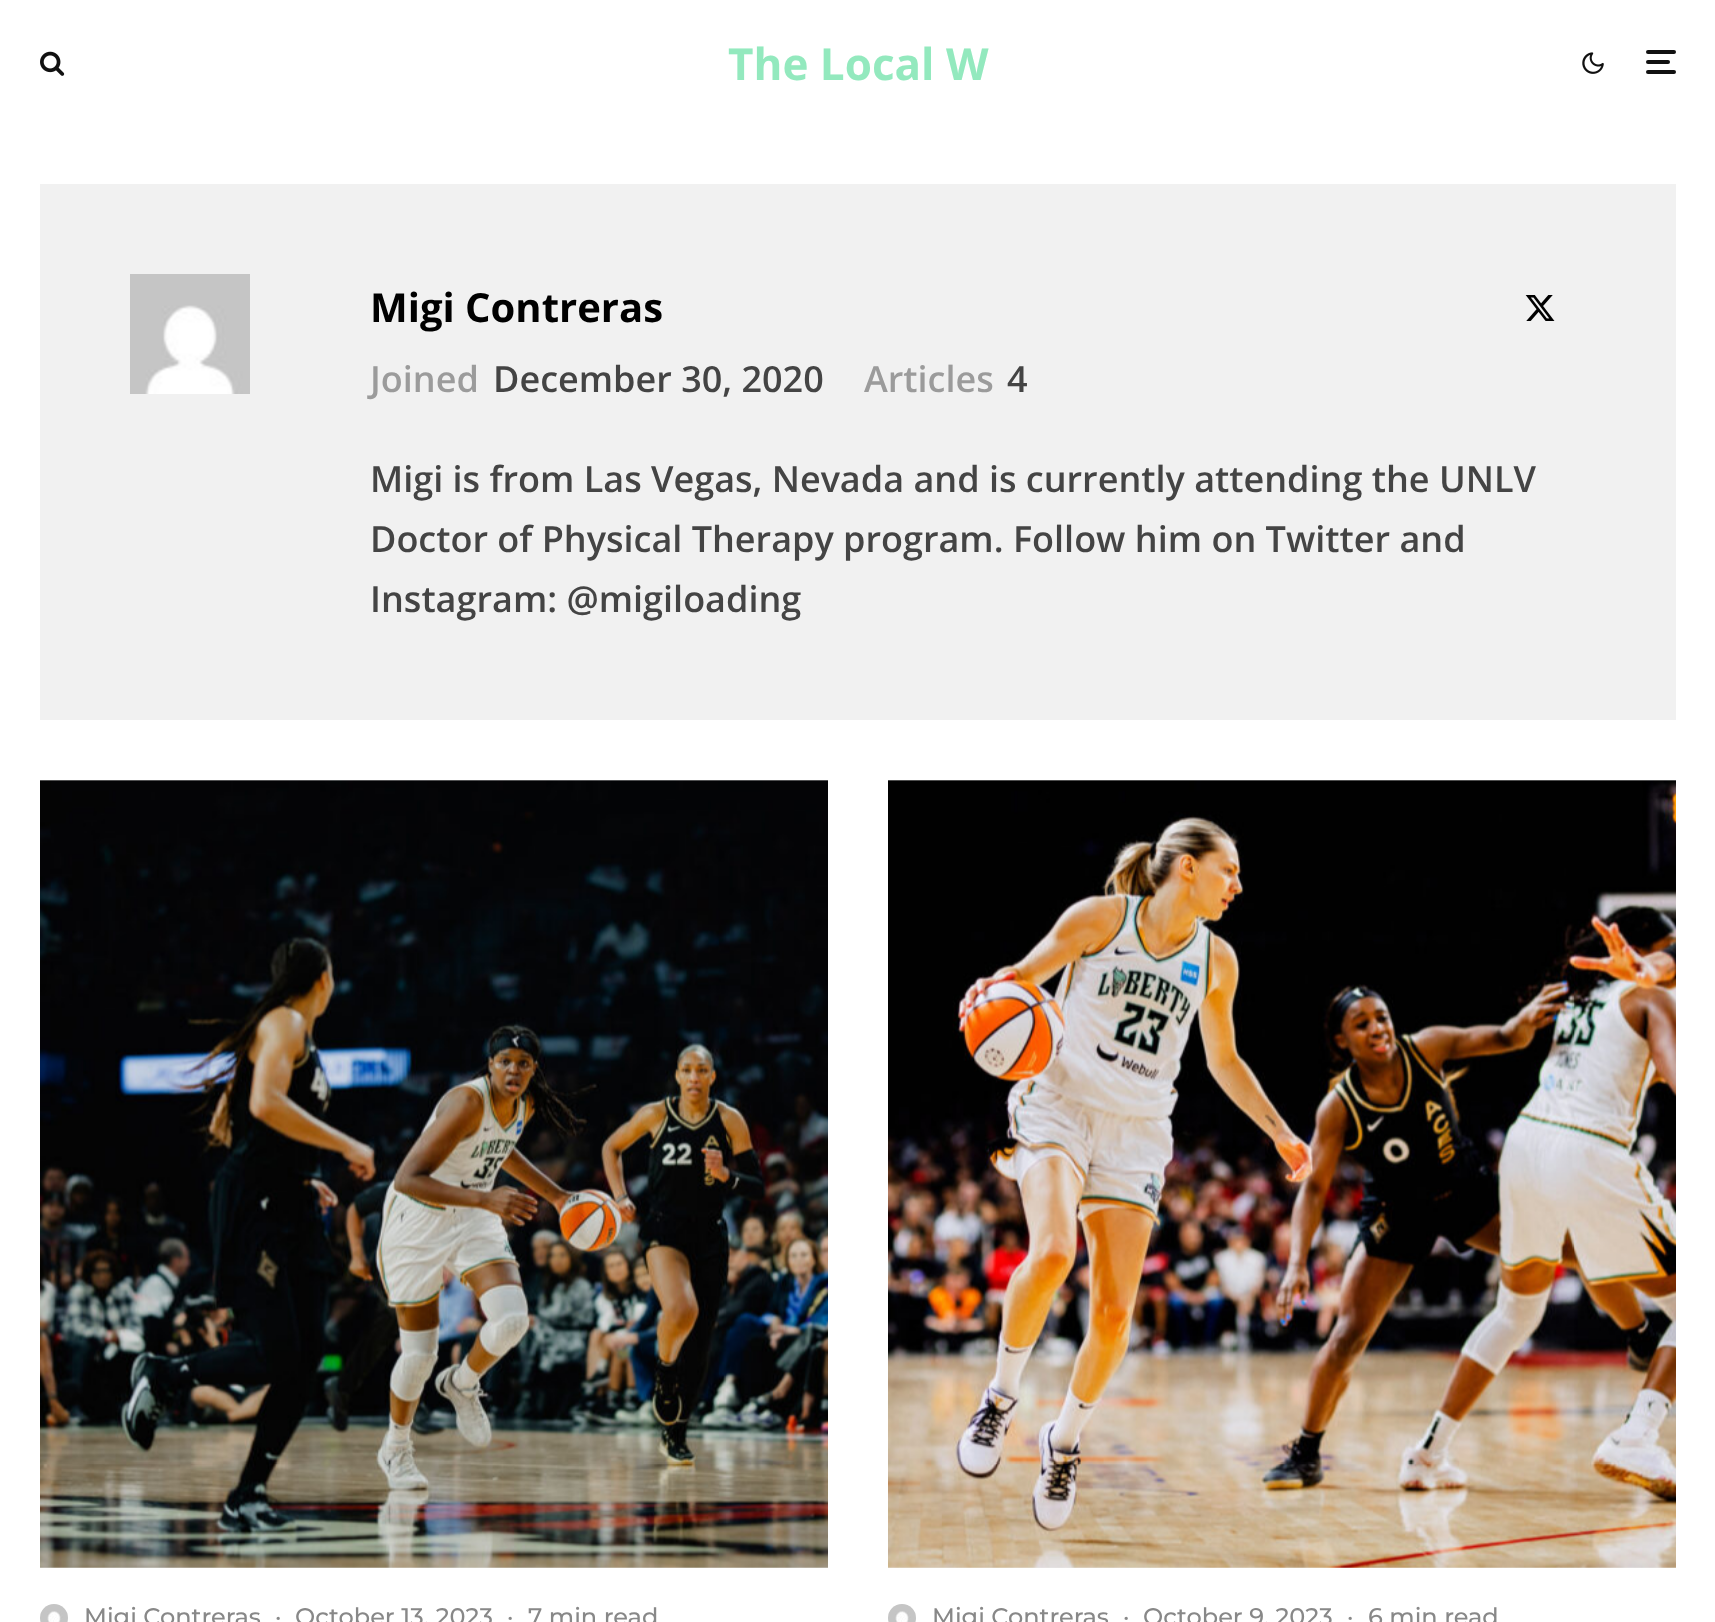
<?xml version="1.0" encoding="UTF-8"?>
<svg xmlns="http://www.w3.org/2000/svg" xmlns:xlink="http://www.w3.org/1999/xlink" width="1715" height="1622">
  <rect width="100%" height="100%" fill="#ffffff" />
  <image x="40" y="51" width="25" height="25" xlink:href="image1.png" />
  <image x="1582" y="52" width="22" height="22" xlink:href="image2.png" />
  <rect x="1646" y="60" width="24" height="4" rx="2" fill="#111111" />
  <rect x="1646" y="50" width="30" height="4" rx="2" fill="#111111" />
  <rect x="1646" y="70" width="30" height="4" rx="2" fill="#111111" />
  <rect x="40" y="184" width="1636" height="536" fill="#f1f1f1" />
  <image x="130" y="274" width="120" height="120" xlink:href="image3.png" />
  <image x="1525" y="295" width="30" height="26" xlink:href="image4.png" />
  <rect x="40" y="780" width="788" height="788" fill="#eeeeee" />
  <image x="40" y="780" width="788" height="788" xlink:href="image5.png" />
  <image x="40" y="1604" width="28" height="18" xlink:href="image6.png" />
  <rect x="888" y="780" width="788" height="788" fill="#eeeeee" />
  <image x="888" y="780" width="788" height="788" xlink:href="image7.png" />
  <image x="888" y="1604" width="28" height="18" xlink:href="image8.png" />
  <text x="728" y="80" style="font-family: Open Sans; font-size: 44px; font-weight: bold; fill: #93e9be">The Local W</text>
  <text x="370" y="322" style="font-family: Open Sans; font-size: 40px; font-weight: bold; fill: #000000">Migi Contreras</text>
  <text x="370" y="392" style="font-family: Open Sans; font-size: 36px; font-weight: 600; fill: #9b9b9b">Joined</text>
  <text x="493" y="392" style="font-family: Open Sans; font-size: 36px; font-weight: 600; fill: #444444">December 30, 2020</text>
  <text x="864" y="392" style="font-family: Open Sans; font-size: 36px; font-weight: 600; fill: #9b9b9b">Articles</text>
  <text x="1007" y="392" style="font-family: Open Sans; font-size: 36px; font-weight: 600; fill: #444444">4</text>
  <text x="370" y="492" style="font-family: Open Sans; font-size: 36px; font-weight: 600; fill: #444444">Migi is from Las Vegas, Nevada and is currently attending the UNLV</text>
  <text x="370" y="552" style="font-family: Open Sans; font-size: 36px; font-weight: 600; fill: #444444">Doctor of Physical Therapy program. Follow him on Twitter and</text>
  <text x="370" y="612" style="font-family: Open Sans; font-size: 36px; font-weight: 600; fill: #444444">Instagram: @migiloading</text>
  <text x="84" y="1625" style="font-family: Montserrat; font-size: 24px; font-weight: 500; fill: #888888">Migi Contreras</text>
  <text x="275" y="1625" style="font-family: Montserrat; font-size: 24px; font-weight: 500; fill: #888888">·</text>
  <text x="295" y="1625" style="font-family: Montserrat; font-size: 24px; font-weight: 500; fill: #888888">October 13, 2023</text>
  <text x="507" y="1625" style="font-family: Montserrat; font-size: 24px; font-weight: 500; fill: #888888">·</text>
  <text x="528" y="1625" style="font-family: Montserrat; font-size: 24px; font-weight: 500; fill: #888888">7 min read</text>
  <text x="932" y="1625" style="font-family: Montserrat; font-size: 24px; font-weight: 500; fill: #888888">Migi Contreras</text>
  <text x="1123" y="1625" style="font-family: Montserrat; font-size: 24px; font-weight: 500; fill: #888888">·</text>
  <text x="1143" y="1625" style="font-family: Montserrat; font-size: 24px; font-weight: 500; fill: #888888">October 9, 2023</text>
  <text x="1347" y="1625" style="font-family: Montserrat; font-size: 24px; font-weight: 500; fill: #888888">·</text>
  <text x="1368" y="1625" style="font-family: Montserrat; font-size: 24px; font-weight: 500; fill: #888888">6 min read</text>
</svg>
